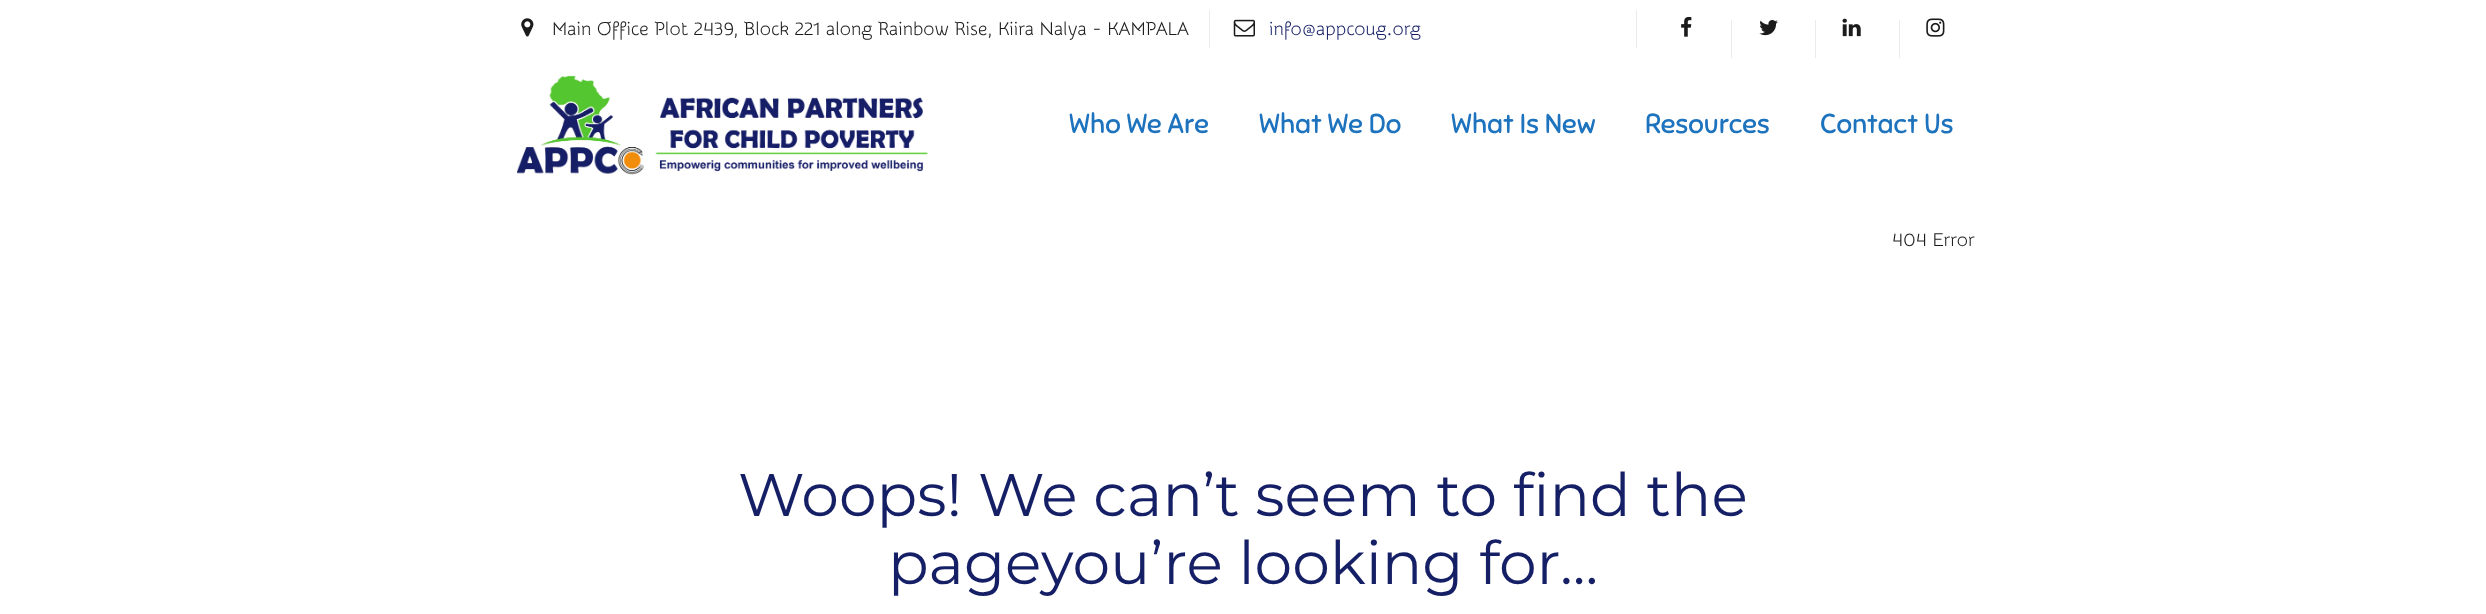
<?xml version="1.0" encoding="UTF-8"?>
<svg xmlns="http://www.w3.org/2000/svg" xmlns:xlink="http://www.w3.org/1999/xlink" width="2486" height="614">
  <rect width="100%" height="100%" fill="#ffffff" />
  <image x="521" y="18" width="13" height="19" xlink:href="image1.png" />
  <rect x="1209" y="10" width="1" height="38" fill="#e9ecef" />
  <image x="1233" y="19" width="22" height="18" xlink:href="image2.png" />
  <rect x="1636" y="10" width="1" height="38" fill="#e9ecef" />
  <image x="1681" y="16" width="11" height="21" xlink:href="image3.png" />
  <rect x="1731" y="20" width="1" height="38" fill="#e9ecef" />
  <image x="1759" y="20" width="19" height="16" xlink:href="image4.png" />
  <rect x="1815" y="20" width="1" height="38" fill="#e9ecef" />
  <image x="1842" y="18" width="19" height="19" xlink:href="image5.png" />
  <rect x="1899" y="20" width="1" height="38" fill="#e9ecef" />
  <image x="1926" y="18" width="19" height="19" xlink:href="image6.png" />
  <image x="516" y="75" width="412" height="100" xlink:href="image7.png" />
  <text x="552" y="35" style="font-family: Snippet; font-size: 18.75px; fill: #1b1b1b">Main Office Plot 2439, Block 221 along Rainbow Rise, Kiira Nalya - KAMPALA</text>
  <text x="1269" y="35" style="font-family: Snippet; font-size: 18.75px; fill: #151f66">info@appcoug.org</text>
  <text x="1069" y="133" style="font-family: Sniglet; font-size: 27.5px; fill: #1e73be">Who We Are</text>
  <text x="1259" y="133" style="font-family: Sniglet; font-size: 27.5px; fill: #1e73be">What We Do</text>
  <text x="1451" y="133" style="font-family: Sniglet; font-size: 27.5px; fill: #1e73be">What Is New</text>
  <text x="1645" y="133" style="font-family: Sniglet; font-size: 27.5px; fill: #1e73be">Resources</text>
  <text x="1820" y="133" style="font-family: Sniglet; font-size: 27.5px; fill: #1e73be">Contact Us</text>
  <text x="1892" y="246" style="font-family: Snippet; font-size: 18.75px; fill: #1b1b1b">404 Error</text>
  <text x="738" y="516" style="font-family: Montserrat; font-size: 60px; fill: #151f66">Woops! We can’t seem to find the</text>
  <text x="888" y="584" style="font-family: Montserrat; font-size: 60px; fill: #151f66">pageyou’re looking for...</text>
</svg>
